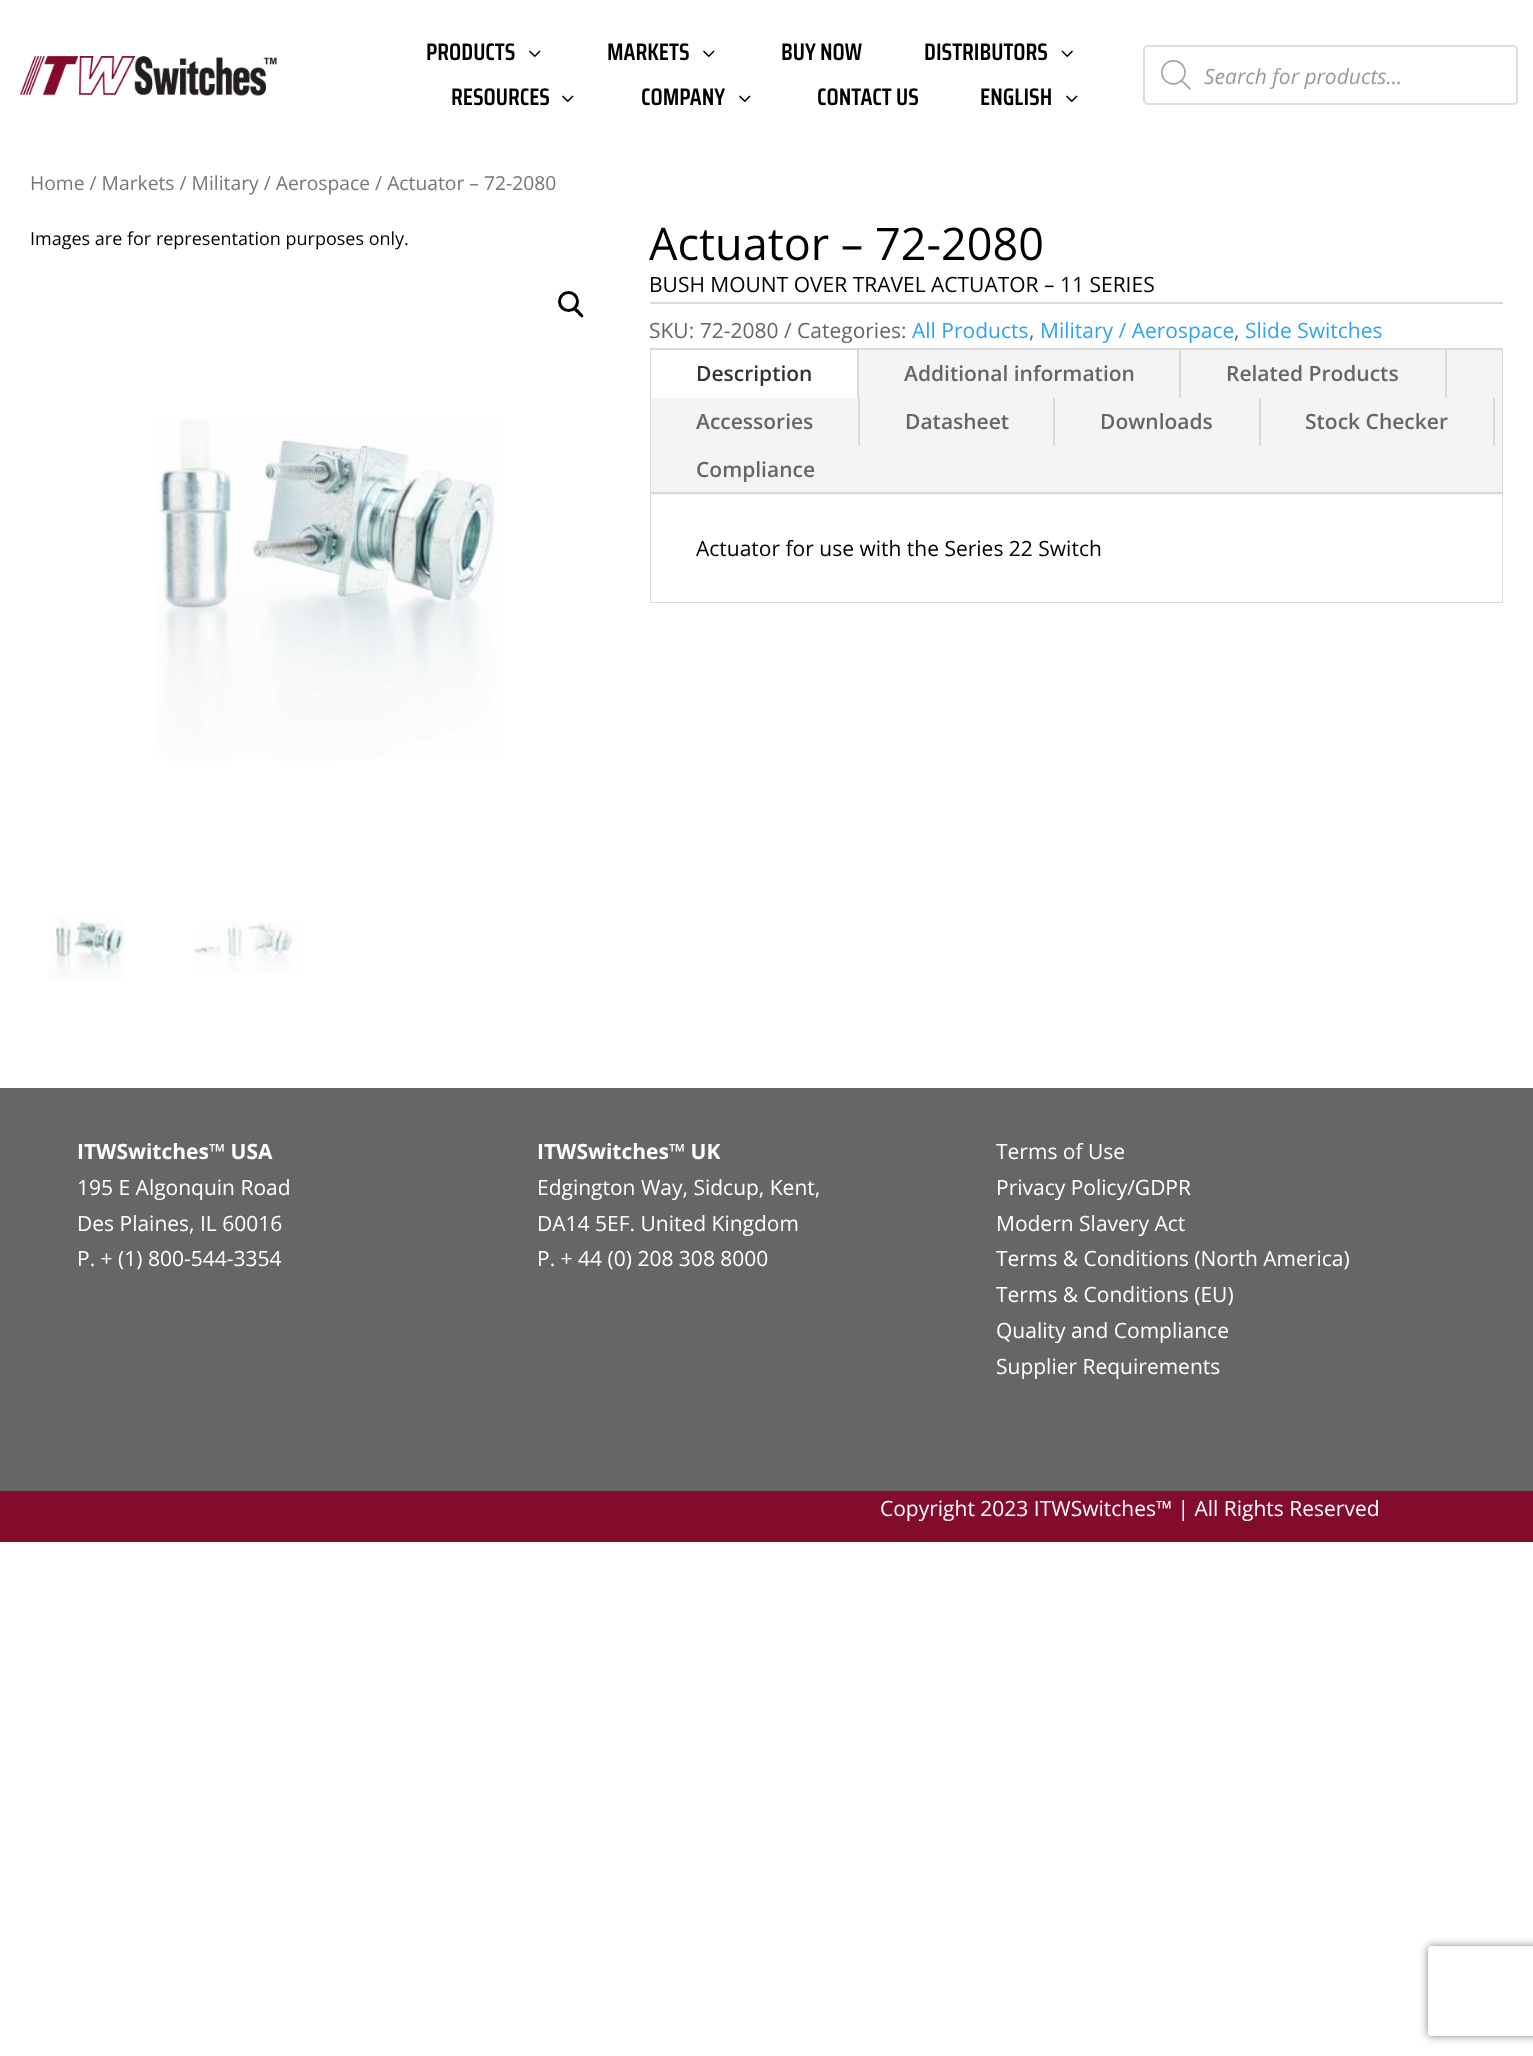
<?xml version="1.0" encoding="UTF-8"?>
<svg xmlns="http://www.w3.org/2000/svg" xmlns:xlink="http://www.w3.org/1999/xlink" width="1533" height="2056">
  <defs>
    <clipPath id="clip1"><path d="M 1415 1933 h 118 v 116 h -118 z m 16 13 h 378 c 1.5 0 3 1.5 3 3 v 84 c 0 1.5 -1.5 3 -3 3 h -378 c -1.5 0 -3 -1.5 -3 -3 v -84 c 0 -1.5 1.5 -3 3 -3 z" clip-rule="evenodd" /></clipPath>
  </defs>
  <rect width="100%" height="100%" fill="#ffffff" />
  <image x="20" y="55" width="257" height="41" xlink:href="image1.png" />
  <image x="529" y="50" width="12" height="7" xlink:href="image2.png" />
  <image x="703" y="50" width="12" height="7" xlink:href="image2.png" />
  <image x="1061" y="50" width="12" height="7" xlink:href="image3.png" />
  <image x="562" y="95" width="12" height="7" xlink:href="image2.png" />
  <image x="739" y="95" width="12" height="7" xlink:href="image2.png" />
  <image x="1066" y="95" width="12" height="7" xlink:href="image2.png" />
  <rect x="1144" y="46" width="373" height="58" rx="4" fill="none" stroke="#dddddd" stroke-width="2" />
  <image x="1161" y="60" width="30" height="30" xlink:href="image4.png" />
  <circle cx="568.5" cy="301.5" r="9" fill="none" stroke="#000000" stroke-width="3" />
  <path d="M 574.5 308.5 c 1.5 -2 4.5 2 5.5 3 c 0.5 1 4.5 3.5 3 5.5 c -2 1.5 -4.5 -2.5 -5.5 -3.5 c -1 -1 -5 -3.5 -3 -5 z" fill="#000000" />
  <image x="156" y="419" width="344" height="342" xlink:href="image5.png" />
  <image x="49" y="918" width="76" height="62" xlink:href="image6.png" />
  <image x="193" y="921" width="107" height="53" xlink:href="image7.png" />
  <rect x="650" y="302" width="853" height="2" fill="#dadada" />
  <rect x="651" y="349" width="851" height="253" fill="none" stroke="#d9d9d9" stroke-width="2" />
  <rect x="651" y="350" width="851" height="145" fill="#f4f4f4" />
  <rect x="651" y="350" width="206" height="48" fill="#ffffff" />
  <rect x="857" y="350" width="2" height="48" fill="#d9d9d9" />
  <rect x="1179" y="350" width="2" height="48" fill="#d9d9d9" />
  <rect x="1445" y="350" width="2" height="48" fill="#d9d9d9" />
  <rect x="858" y="398" width="2" height="48" fill="#d9d9d9" />
  <rect x="1053" y="398" width="2" height="48" fill="#d9d9d9" />
  <rect x="1259" y="398" width="2" height="48" fill="#d9d9d9" />
  <rect x="1493" y="398" width="2" height="48" fill="#d9d9d9" />
  <rect x="651" y="492" width="851" height="2" fill="#d9d9d9" />
  <rect x="651" y="495" width="851" height="107" fill="#ffffff" />
  <rect y="1088" width="1533" height="403" fill="#666666" />
  <rect y="1491" width="1533" height="51" fill="#830b2c" />
  <g clip-path="url(#clip1)">
    <rect x="1428" y="1946" width="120" height="90" rx="3" fill="#808080" filter="blur(4px)" />
  </g>
  <text x="426" y="60" style="font-family: Saira Condensed; font-size: 24px; font-weight: 600; fill: #000000">PRODUCTS</text>
  <text x="607" y="60" style="font-family: Saira Condensed; font-size: 24px; font-weight: 600; fill: #000000">MARKETS</text>
  <text x="781" y="60" style="font-family: Saira Condensed; font-size: 24px; font-weight: 600; fill: #000000">BUY NOW</text>
  <text x="924" y="60" style="font-family: Saira Condensed; font-size: 24px; font-weight: 600; fill: #000000">DISTRIBUTORS</text>
  <text x="451" y="105" style="font-family: Saira Condensed; font-size: 24px; font-weight: 600; fill: #000000">RESOURCES</text>
  <text x="641" y="105" style="font-family: Saira Condensed; font-size: 24px; font-weight: 600; fill: #000000">COMPANY</text>
  <text x="817" y="105" style="font-family: Saira Condensed; font-size: 24px; font-weight: 600; fill: #000000">CONTACT US</text>
  <text x="980" y="105" style="font-family: Saira Condensed; font-size: 24px; font-weight: 600; fill: #000000">ENGLISH</text>
  <text x="1204" y="84" style="font-family: Open Sans; font-size: 21px; font-style: italic; fill: #999999">Search for products...</text>
  <text x="30" y="190" style="font-family: Open Sans; font-size: 19.3px; fill: #767676">Home / Markets / Military / Aerospace / Actuator – 72-2080</text>
  <text x="30" y="245" style="font-family: Open Sans; font-size: 18px; fill: #000000">Images are for representation purposes only.</text>
  <text x="649" y="260" style="font-family: Open Sans; font-size: 45px; fill: #000000">Actuator – 72-2080</text>
  <text x="649" y="292" style="font-family: Open Sans; font-size: 21px; fill: #000000">BUSH MOUNT OVER TRAVEL ACTUATOR – 11 SERIES</text>
  <text x="649" y="338" style="font-family: Open Sans; font-size: 21px; fill: #666666">SKU: 72-2080 / Categories:</text>
  <text x="912" y="338" style="font-family: Open Sans; font-size: 21px; fill: #2ea3f2">All Products</text>
  <text x="1029" y="338" style="font-family: Open Sans; font-size: 21px; fill: #666666">,</text>
  <text x="1040" y="338" style="font-family: Open Sans; font-size: 21px; fill: #2ea3f2">Military / Aerospace</text>
  <text x="1234" y="338" style="font-family: Open Sans; font-size: 21px; fill: #666666">,</text>
  <text x="1245" y="338" style="font-family: Open Sans; font-size: 21px; fill: #2ea3f2">Slide Switches</text>
  <text x="696" y="381" style="font-family: Open Sans; font-size: 21px; font-weight: 600; fill: #333333">Description</text>
  <text x="904" y="381" style="font-family: Open Sans; font-size: 21px; font-weight: 600; fill: #666666">Additional information</text>
  <text x="1226" y="381" style="font-family: Open Sans; font-size: 21px; font-weight: 600; fill: #666666">Related Products</text>
  <text x="696" y="429" style="font-family: Open Sans; font-size: 21px; font-weight: 600; fill: #666666">Accessories</text>
  <text x="905" y="429" style="font-family: Open Sans; font-size: 21px; font-weight: 600; fill: #666666">Datasheet</text>
  <text x="1100" y="429" style="font-family: Open Sans; font-size: 21px; font-weight: 600; fill: #666666">Downloads</text>
  <text x="1305" y="429" style="font-family: Open Sans; font-size: 21px; font-weight: 600; fill: #666666">Stock Checker</text>
  <text x="696" y="477" style="font-family: Open Sans; font-size: 21px; font-weight: 600; fill: #666666">Compliance</text>
  <text x="696" y="556" style="font-family: Open Sans; font-size: 21px; fill: #000000">Actuator for use with the Series 22 Switch</text>
  <text x="77" y="1159" style="font-family: Open Sans; font-size: 21px; font-weight: bold; fill: #ffffff">ITWSwitches™ USA</text>
  <text x="77" y="1195" style="font-family: Open Sans; font-size: 21px; fill: #ffffff">195 E Algonquin Road</text>
  <text x="77" y="1231" style="font-family: Open Sans; font-size: 21px; fill: #ffffff">Des Plaines, IL 60016</text>
  <text x="77" y="1266" style="font-family: Open Sans; font-size: 21px; fill: #ffffff">P. + (1) 800-544-3354</text>
  <text x="537" y="1159" style="font-family: Open Sans; font-size: 21px; font-weight: bold; fill: #ffffff">ITWSwitches™ UK</text>
  <text x="537" y="1195" style="font-family: Open Sans; font-size: 21px; fill: #ffffff">Edgington Way, Sidcup, Kent,</text>
  <text x="537" y="1231" style="font-family: Open Sans; font-size: 21px; fill: #ffffff">DA14 5EF. United Kingdom</text>
  <text x="537" y="1266" style="font-family: Open Sans; font-size: 21px; fill: #ffffff">P. + 44 (0) 208 308 8000</text>
  <text x="996" y="1159" style="font-family: Open Sans; font-size: 21px; fill: #ffffff">Terms of Use</text>
  <text x="996" y="1195" style="font-family: Open Sans; font-size: 21px; fill: #ffffff">Privacy Policy/GDPR</text>
  <text x="996" y="1231" style="font-family: Open Sans; font-size: 21px; fill: #ffffff">Modern Slavery Act</text>
  <text x="996" y="1266" style="font-family: Open Sans; font-size: 21px; fill: #ffffff">Terms &amp; Conditions (North America)</text>
  <text x="996" y="1302" style="font-family: Open Sans; font-size: 21px; fill: #ffffff">Terms &amp; Conditions (EU)</text>
  <text x="996" y="1338" style="font-family: Open Sans; font-size: 21px; fill: #ffffff">Quality and Compliance</text>
  <text x="996" y="1374" style="font-family: Open Sans; font-size: 21px; fill: #ffffff">Supplier Requirements</text>
  <text x="880" y="1516" style="font-family: Open Sans; font-size: 21px; fill: #ffffff">Copyright 2023 ITWSwitches™ | All Rights Reserved</text>
</svg>
